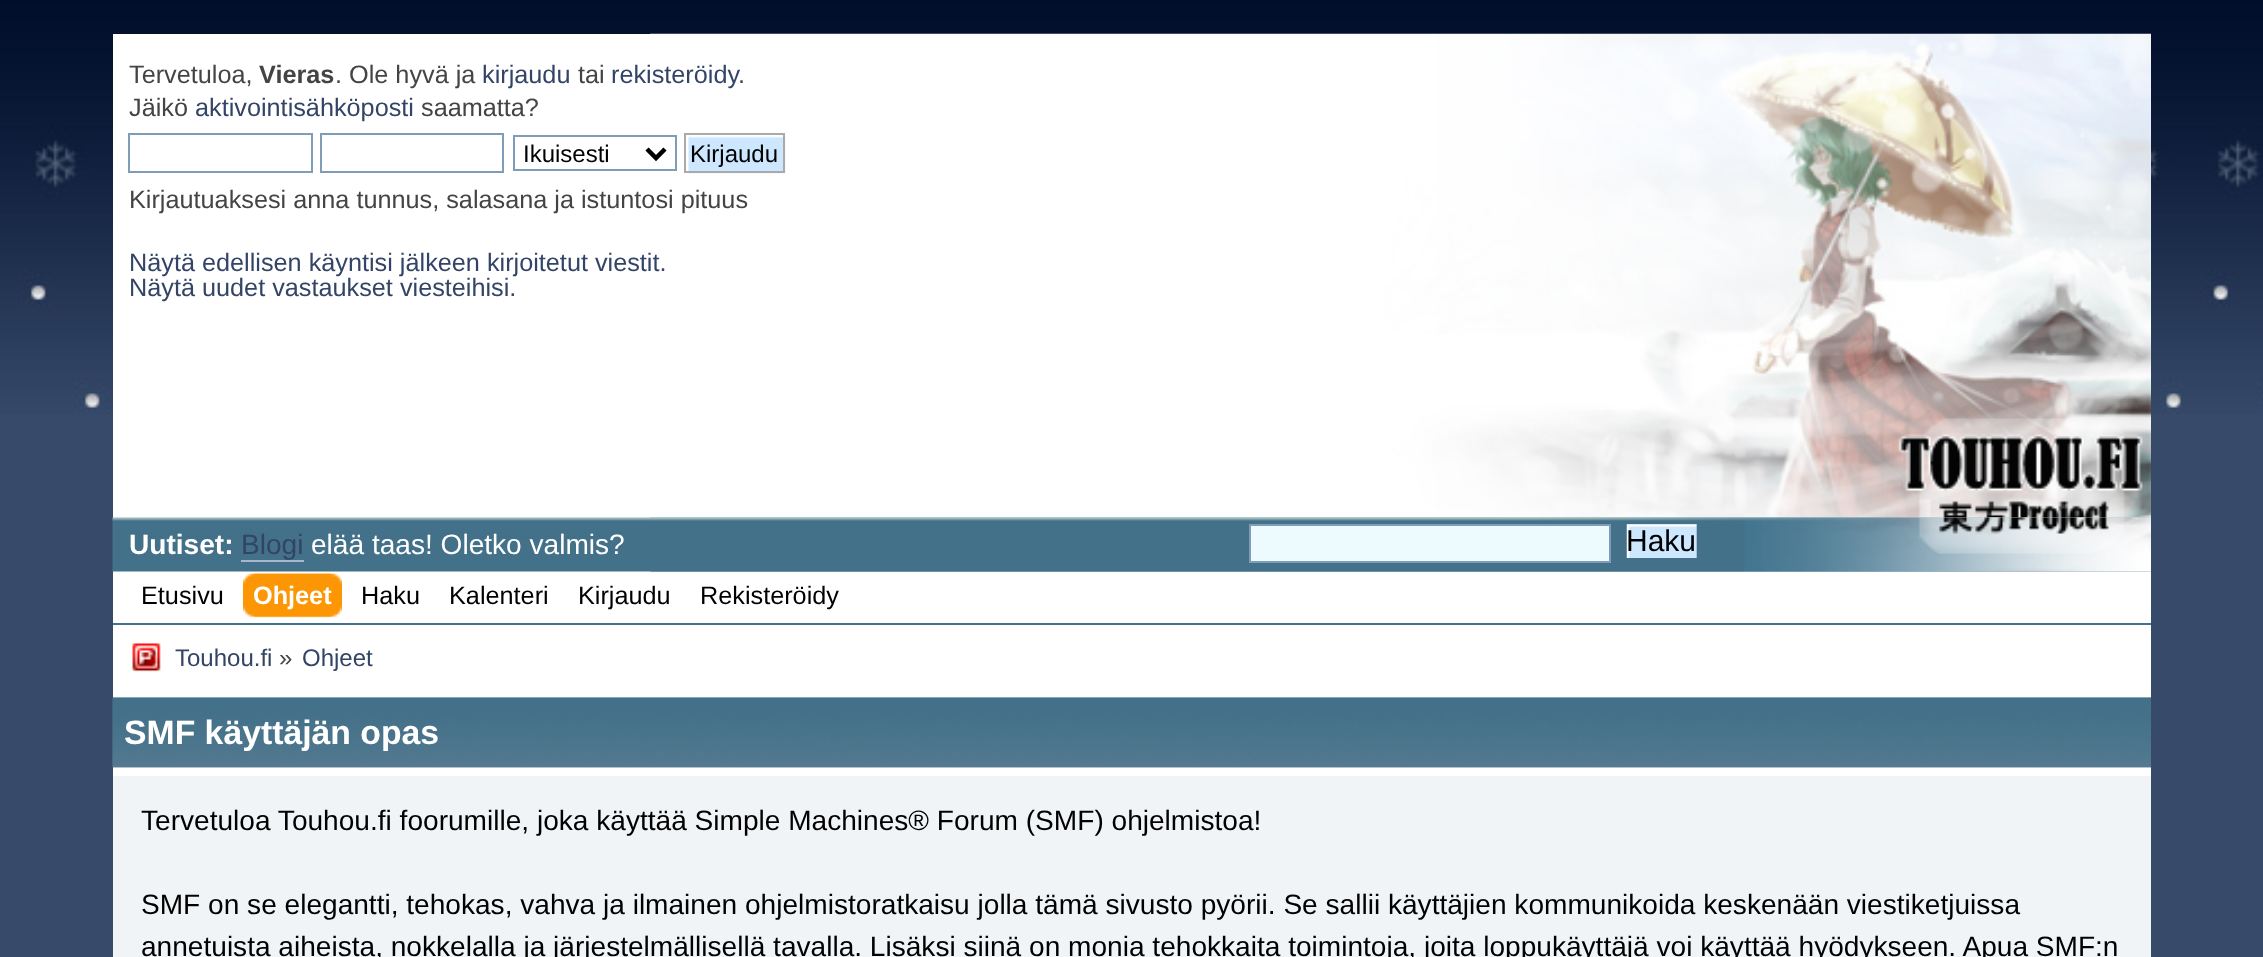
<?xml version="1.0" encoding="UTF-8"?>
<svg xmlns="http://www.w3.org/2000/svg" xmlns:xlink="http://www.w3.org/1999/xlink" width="2263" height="957">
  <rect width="100%" height="100%" fill="#374a6a" />
  <image x="0" y="0" width="2263" height="414" xlink:href="image1.png" />
  <rect x="113" y="34" width="2038" height="742" fill="#ffffff" />
  <image x="650" y="33" width="1501" height="485" xlink:href="image2.png" />
  <rect x="129" y="134" width="183" height="38" fill="none" stroke="#7f9db9" stroke-width="2" />
  <rect x="321" y="134" width="182" height="38" fill="none" stroke="#7f9db9" stroke-width="2" />
  <rect x="514" y="136" width="162" height="34" fill="none" stroke="#7f9db9" stroke-width="2" />
  <path d="M 647 149 l 9 9 l 9 -9" fill="none" stroke="#000000" stroke-width="4.5" />
  <image x="686" y="135" width="100" height="39" xlink:href="image3.png" />
  <rect x="685" y="134" width="99" height="38" fill="none" stroke="#aaaaaa" stroke-width="2" />
  <image x="112" y="517" width="2039" height="55" xlink:href="image4.png" />
  <image x="650" y="517" width="1501" height="55" xlink:href="image5.png" />
  <rect x="241" y="560" width="63" height="2" fill="#a8b6cf" />
  <rect x="1250" y="525" width="360" height="37" fill="#edfbfe" stroke="#7f9db9" stroke-width="2" />
  <rect x="1627" y="524" width="70" height="34" fill="#7f9db9" />
  <image x="1626" y="524" width="71" height="34" xlink:href="image6.png" />
  <image x="254" y="573" width="88" height="45" xlink:href="image7.png" />
  <image x="243" y="573" width="88" height="45" xlink:href="image8.png" />
  <rect x="113" y="623" width="2038" height="2" fill="#437189" />
  <image x="132" y="643" width="29" height="29" xlink:href="image9.png" />
  <image x="112" y="697" width="2039" height="71" xlink:href="image10.png" />
  <image x="112" y="697" width="2039" height="71" xlink:href="image11.png" />
  <rect x="113" y="776" width="2038" height="181" fill="#f0f4f7" />
  <text x="129" y="83" style="font-family: Liberation Sans; font-size: 25.25px; fill: #444444">Tervetuloa,</text>
  <text x="259" y="83" style="font-family: Liberation Sans; font-size: 25.25px; font-weight: bold; fill: #444444">Vieras</text>
  <text x="335" y="83" style="font-family: Liberation Sans; font-size: 25.25px; fill: #444444">. Ole hyvä ja</text>
  <text x="482" y="83" style="font-family: Liberation Sans; font-size: 25.25px; fill: #334466">kirjaudu</text>
  <text x="578" y="83" style="font-family: Liberation Sans; font-size: 25.25px; fill: #444444">tai</text>
  <text x="611" y="83" style="font-family: Liberation Sans; font-size: 25.25px; fill: #334466">rekisteröidy</text>
  <text x="738" y="83" style="font-family: Liberation Sans; font-size: 25.25px; fill: #444444">.</text>
  <text x="129" y="116" style="font-family: Liberation Sans; font-size: 25.25px; fill: #444444">Jäikö</text>
  <text x="195" y="116" style="font-family: Liberation Sans; font-size: 25.25px; fill: #334466">aktivointisähköposti</text>
  <text x="421" y="116" style="font-family: Liberation Sans; font-size: 25.25px; fill: #444444">saamatta?</text>
  <text x="523" y="162" style="font-family: Liberation Sans; font-size: 24px; fill: #000000">Ikuisesti</text>
  <text x="690" y="162" style="font-family: Liberation Sans; font-size: 24px; fill: #000000">Kirjaudu</text>
  <text x="129" y="208" style="font-family: Liberation Sans; font-size: 25.25px; fill: #444444">Kirjautuaksesi anna tunnus, salasana ja istuntosi pituus</text>
  <text x="129" y="271" style="font-family: Liberation Sans; font-size: 25.25px; fill: #334466">Näytä edellisen käyntisi jälkeen kirjoitetut viestit.</text>
  <text x="129" y="296" style="font-family: Liberation Sans; font-size: 25.25px; fill: #334466">Näytä uudet vastaukset viesteihisi.</text>
  <text x="129" y="554" style="font-family: Liberation Sans; font-size: 28.08px; font-weight: bold; fill: #ffffff">Uutiset:</text>
  <text x="241" y="554" style="font-family: Liberation Sans; font-size: 28.08px; fill: #334466">Blogi</text>
  <text x="311" y="554" style="font-family: Liberation Sans; font-size: 28.08px; fill: #ffffff">elää taas! Oletko valmis?</text>
  <text x="1626" y="551" style="font-family: Liberation Sans; font-size: 30px; fill: #000000">Haku</text>
  <text x="141" y="604" style="font-family: Liberation Sans; font-size: 25.25px; fill: #000000">Etusivu</text>
  <text x="253" y="604" style="font-family: Liberation Sans; font-size: 25.25px; font-weight: bold; fill: #ffffff">Ohjeet</text>
  <text x="361" y="604" style="font-family: Liberation Sans; font-size: 25.25px; fill: #000000">Haku</text>
  <text x="449" y="604" style="font-family: Liberation Sans; font-size: 25.25px; fill: #000000">Kalenteri</text>
  <text x="578" y="604" style="font-family: Liberation Sans; font-size: 25.25px; fill: #000000">Kirjaudu</text>
  <text x="700" y="604" style="font-family: Liberation Sans; font-size: 25.25px; fill: #000000">Rekisteröidy</text>
  <text x="175" y="666" style="font-family: Liberation Sans; font-size: 24px; fill: #334466">Touhou.fi</text>
  <text x="279" y="666" style="font-family: Liberation Sans; font-size: 24px; fill: #444444">»</text>
  <text x="302" y="666" style="font-family: Liberation Sans; font-size: 24px; fill: #334466">Ohjeet</text>
  <text x="124" y="744" style="font-family: Liberation Sans; font-size: 33.75px; font-weight: bold; fill: #ffffff">SMF käyttäjän opas</text>
  <text x="141" y="830" style="font-family: Liberation Sans; font-size: 28.08px; fill: #000000">Tervetuloa Touhou.fi foorumille, joka käyttää Simple Machines® Forum (SMF) ohjelmistoa!</text>
  <text x="141" y="914" style="font-family: Liberation Sans; font-size: 28.08px; fill: #000000">SMF on se elegantti, tehokas, vahva ja ilmainen ohjelmistoratkaisu jolla tämä sivusto pyörii. Se sallii käyttäjien kommunikoida keskenään viestiketjuissa</text>
  <text x="141" y="956" style="font-family: Liberation Sans; font-size: 28.08px; fill: #000000">annetuista aiheista, nokkelalla ja järjestelmällisellä tavalla. Lisäksi siinä on monia tehokkaita toimintoja, joita loppukäyttäjä voi käyttää hyödykseen. Apua SMF:n</text>
</svg>
